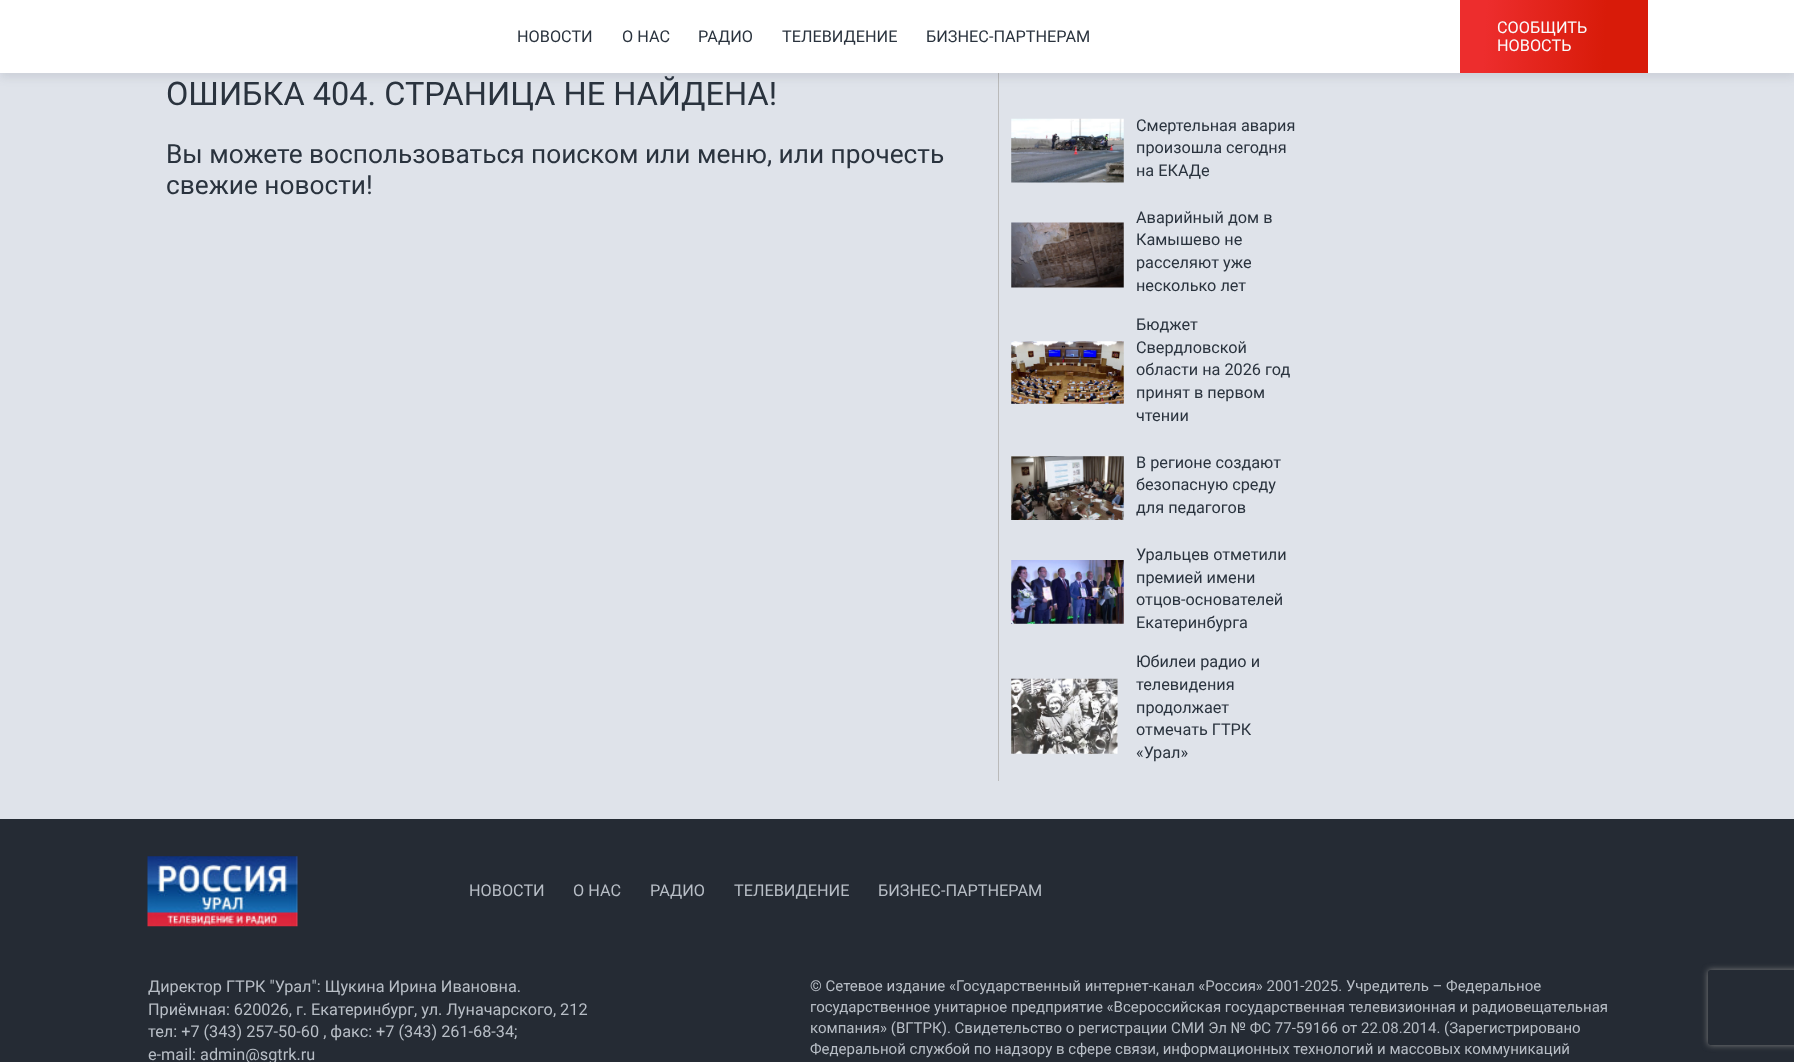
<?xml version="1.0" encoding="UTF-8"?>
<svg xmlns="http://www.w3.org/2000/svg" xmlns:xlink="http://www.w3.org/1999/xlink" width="1794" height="1062">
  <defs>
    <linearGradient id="g1" gradientUnits="userSpaceOnUse" x1="1458" y1="31" x2="1649" y2="42"><stop offset="0.14" stop-color="#ed2d2d" /><stop offset="0.77" stop-color="#d81b09" /></linearGradient>
    <clipPath id="clip1"><path d="M 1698 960 h 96 v 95 h -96 z m 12.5 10 h 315 c 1.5 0 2.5 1 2.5 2.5 v 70 c 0 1.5 -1 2.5 -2.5 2.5 h -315 c -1.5 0 -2.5 -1 -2.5 -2.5 v -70 c 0 -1.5 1 -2.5 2.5 -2.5 z" clip-rule="evenodd" /></clipPath>
  </defs>
  <rect width="100%" height="100%" fill="#dfe3ea" />
  <rect x="998" y="73" width="1" height="708" fill="#bababa" />
  <rect y="5" width="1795" height="73" fill="#4c5561" fill-opacity="0.12" filter="blur(4px)" />
  <rect width="1794" height="73" fill="#ffffff" />
  <rect x="1460" width="188" height="73" fill="url(#g1)" />
  <image x="1011" y="118" width="113" height="65" xlink:href="image1.png" />
  <image x="1011" y="222" width="113" height="66" xlink:href="image2.png" />
  <image x="1011" y="341" width="113" height="63" xlink:href="image3.png" />
  <image x="1011" y="456" width="113" height="64" xlink:href="image4.png" />
  <image x="1011" y="560" width="113" height="64" xlink:href="image5.png" />
  <image x="1011" y="678" width="107" height="76" xlink:href="image6.png" />
  <rect y="819" width="1794" height="243" fill="#252b34" />
  <image x="147" y="856" width="151" height="71" xlink:href="image7.png" />
  <g clip-path="url(#clip1)">
    <rect x="1708" y="970" width="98" height="75" rx="2.5" fill="#808080" filter="blur(3px)" />
  </g>
  <text x="517" y="42" style="font-family: Roboto; font-size: 16.25px; fill: #2a333e">НОВОСТИ</text>
  <text x="622" y="42" style="font-family: Roboto; font-size: 16.25px; fill: #2a333e">О НАС</text>
  <text x="698" y="42" style="font-family: Roboto; font-size: 16.25px; fill: #2a333e">РАДИО</text>
  <text x="782" y="42" style="font-family: Roboto; font-size: 16.25px; fill: #2a333e">ТЕЛЕВИДЕНИЕ</text>
  <text x="926" y="42" style="font-family: Roboto; font-size: 16.25px; fill: #2a333e">БИЗНЕС-ПАРТНЕРАМ</text>
  <text x="1497" y="33" style="font-family: Roboto; font-size: 16.25px; fill: #fbfbfc">СООБЩИТЬ</text>
  <text x="1497" y="51" style="font-family: Roboto; font-size: 16.25px; fill: #fbfbfc">НОВОСТЬ</text>
  <text x="166" y="105" style="font-family: Roboto; font-size: 32.5px; fill: #2a333e">ОШИБКА 404. СТРАНИЦА НЕ НАЙДЕНА!</text>
  <text x="166" y="163" style="font-family: Roboto; font-size: 26.25px; fill: #2a333e">Вы можете воспользоваться поиском или меню, или прочесть</text>
  <text x="166" y="194" style="font-family: Roboto; font-size: 26.25px; fill: #2a333e">свежие новости!</text>
  <text x="1136" y="131" style="font-family: Roboto; font-size: 16.25px; fill: #2a333e">Смертельная авария</text>
  <text x="1136" y="153" style="font-family: Roboto; font-size: 16.25px; fill: #2a333e">произошла сегодня</text>
  <text x="1136" y="176" style="font-family: Roboto; font-size: 16.25px; fill: #2a333e">на ЕКАДе</text>
  <text x="1136" y="223" style="font-family: Roboto; font-size: 16.25px; fill: #2a333e">Аварийный дом в</text>
  <text x="1136" y="245" style="font-family: Roboto; font-size: 16.25px; fill: #2a333e">Камышево не</text>
  <text x="1136" y="268" style="font-family: Roboto; font-size: 16.25px; fill: #2a333e">расселяют уже</text>
  <text x="1136" y="291" style="font-family: Roboto; font-size: 16.25px; fill: #2a333e">несколько лет</text>
  <text x="1136" y="330" style="font-family: Roboto; font-size: 16.25px; fill: #2a333e">Бюджет</text>
  <text x="1136" y="353" style="font-family: Roboto; font-size: 16.25px; fill: #2a333e">Свердловской</text>
  <text x="1136" y="375" style="font-family: Roboto; font-size: 16.25px; fill: #2a333e">области на 2026 год</text>
  <text x="1136" y="398" style="font-family: Roboto; font-size: 16.25px; fill: #2a333e">принят в первом</text>
  <text x="1136" y="421" style="font-family: Roboto; font-size: 16.25px; fill: #2a333e">чтении</text>
  <text x="1136" y="468" style="font-family: Roboto; font-size: 16.25px; fill: #2a333e">В регионе создают</text>
  <text x="1136" y="490" style="font-family: Roboto; font-size: 16.25px; fill: #2a333e">безопасную среду</text>
  <text x="1136" y="513" style="font-family: Roboto; font-size: 16.25px; fill: #2a333e">для педагогов</text>
  <text x="1136" y="560" style="font-family: Roboto; font-size: 16.25px; fill: #2a333e">Уральцев отметили</text>
  <text x="1136" y="583" style="font-family: Roboto; font-size: 16.25px; fill: #2a333e">премией имени</text>
  <text x="1136" y="605" style="font-family: Roboto; font-size: 16.25px; fill: #2a333e">отцов-основателей</text>
  <text x="1136" y="628" style="font-family: Roboto; font-size: 16.25px; fill: #2a333e">Екатеринбурга</text>
  <text x="1136" y="667" style="font-family: Roboto; font-size: 16.25px; fill: #2a333e">Юбилеи радио и</text>
  <text x="1136" y="690" style="font-family: Roboto; font-size: 16.25px; fill: #2a333e">телевидения</text>
  <text x="1136" y="713" style="font-family: Roboto; font-size: 16.25px; fill: #2a333e">продолжает</text>
  <text x="1136" y="735" style="font-family: Roboto; font-size: 16.25px; fill: #2a333e">отмечать ГТРК</text>
  <text x="1136" y="758" style="font-family: Roboto; font-size: 16.25px; fill: #2a333e">«Урал»</text>
  <text x="469" y="896" style="font-family: Roboto; font-size: 16.25px; fill: #b8bec6">НОВОСТИ</text>
  <text x="573" y="896" style="font-family: Roboto; font-size: 16.25px; fill: #b8bec6">О НАС</text>
  <text x="650" y="896" style="font-family: Roboto; font-size: 16.25px; fill: #b8bec6">РАДИО</text>
  <text x="734" y="896" style="font-family: Roboto; font-size: 16.25px; fill: #b8bec6">ТЕЛЕВИДЕНИЕ</text>
  <text x="878" y="896" style="font-family: Roboto; font-size: 16.25px; fill: #b8bec6">БИЗНЕС-ПАРТНЕРАМ</text>
  <text x="148" y="992" style="font-family: Roboto; font-size: 16.25px; fill: #b8bec6">Директор ГТРК "Урал": Щукина Ирина Ивановна.</text>
  <text x="148" y="1015" style="font-family: Roboto; font-size: 16.25px; fill: #b8bec6">Приёмная: 620026, г. Екатеринбург, ул. Луначарского, 212</text>
  <text x="148" y="1037" style="font-family: Roboto; font-size: 16.25px; fill: #b8bec6">тел: +7 (343) 257-50-60 , факс: +7 (343) 261-68-34;</text>
  <text x="148" y="1060" style="font-family: Roboto; font-size: 16.25px; fill: #b8bec6">e-mail: admin@sgtrk.ru</text>
  <text x="810" y="991" style="font-family: Roboto; font-size: 15px; fill: #b8bec6">© Сетевое издание «Государственный интернет-канал «Россия» 2001-2025. Учредитель – Федеральное</text>
  <text x="810" y="1012" style="font-family: Roboto; font-size: 15px; fill: #b8bec6">государственное унитарное предприятие «Всероссийская государственная телевизионная и радиовещательная</text>
  <text x="810" y="1033" style="font-family: Roboto; font-size: 15px; fill: #b8bec6">компания» (ВГТРК). Свидетельство о регистрации СМИ Эл № ФС 77-59166 от 22.08.2014. (Зарегистрировано</text>
  <text x="810" y="1054" style="font-family: Roboto; font-size: 15px; fill: #b8bec6">Федеральной службой по надзору в сфере связи, информационных технологий и массовых коммуникаций</text>
</svg>
